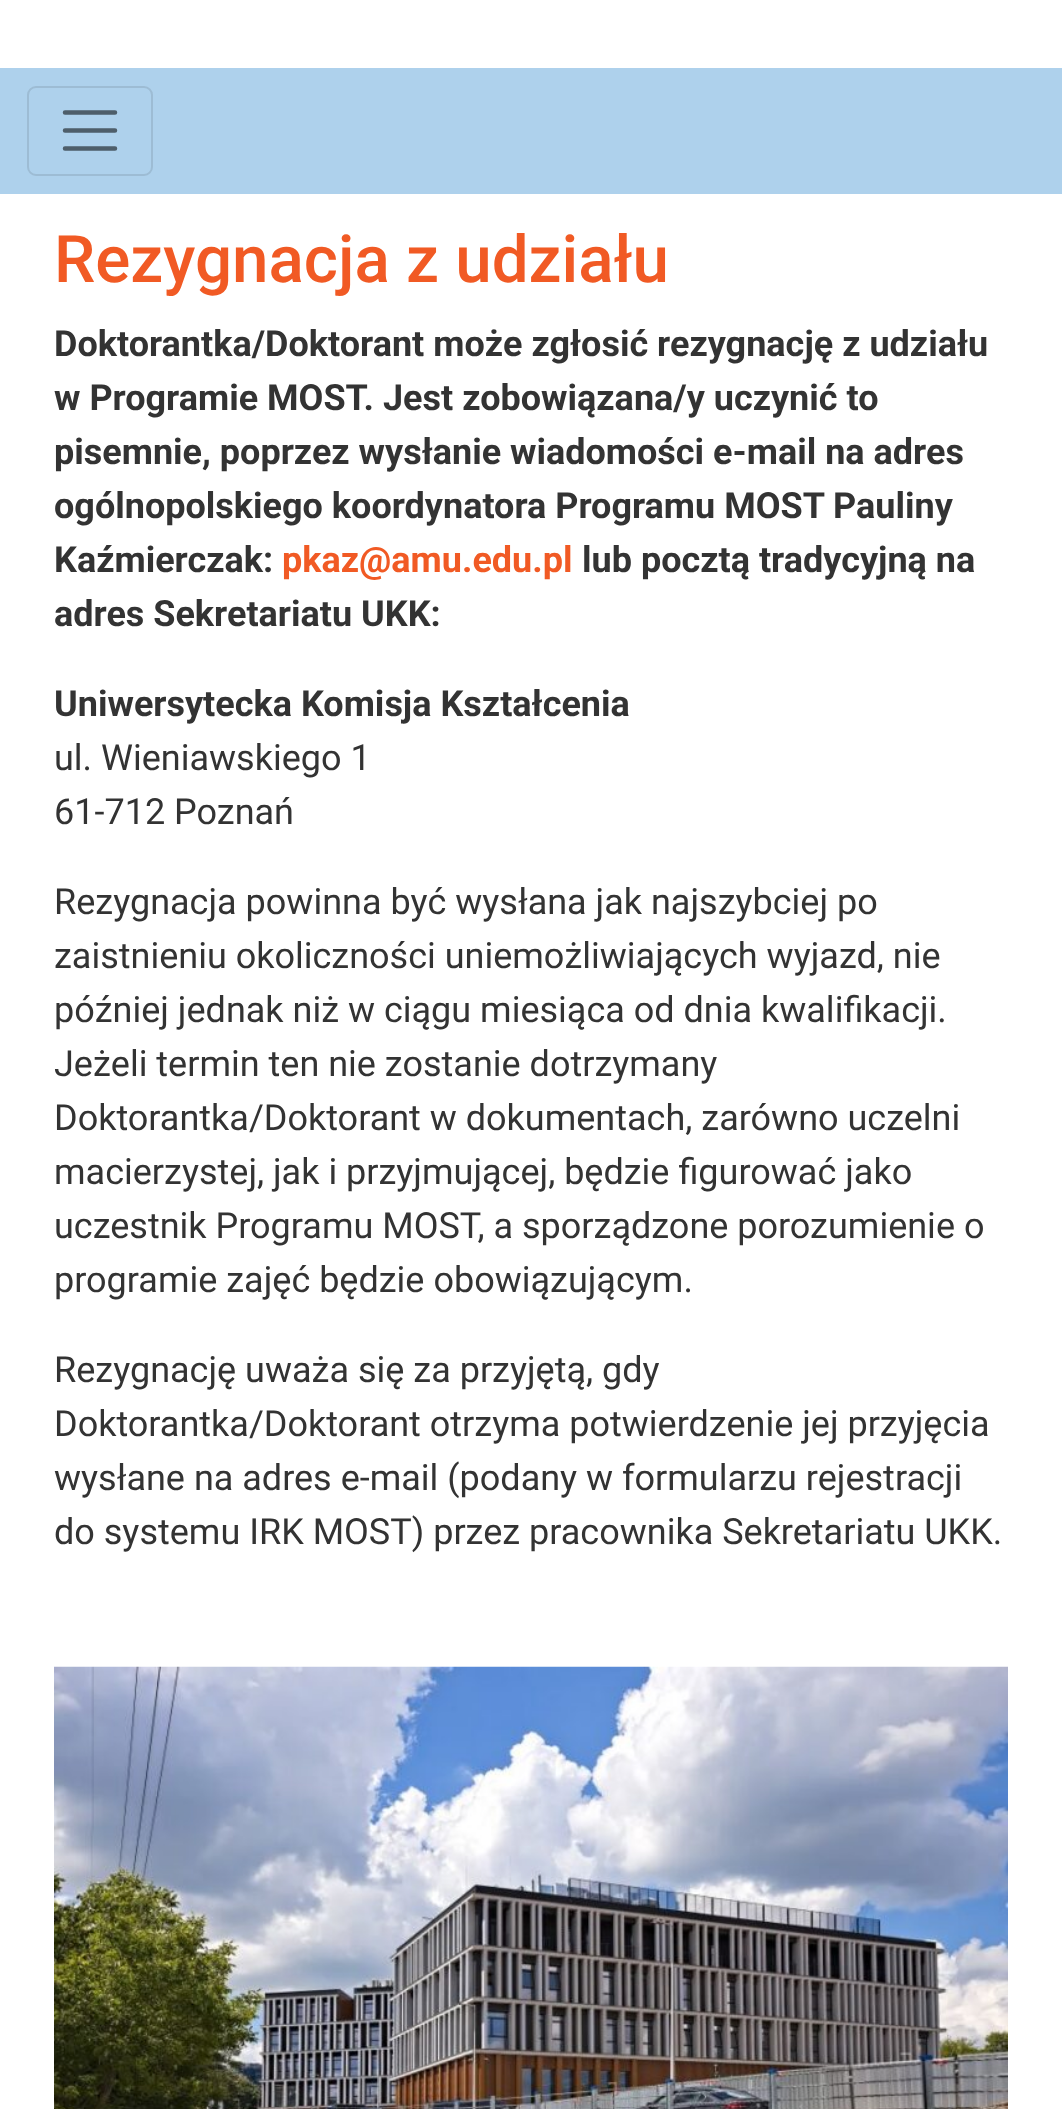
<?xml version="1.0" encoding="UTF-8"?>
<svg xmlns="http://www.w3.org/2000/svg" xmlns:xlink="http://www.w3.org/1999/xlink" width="1062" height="2109">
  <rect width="100%" height="100%" fill="#ffffff" />
  <rect y="68" width="1062" height="126" fill="#aed1ec" />
  <rect x="28" y="87" width="124" height="88" rx="8" fill="none" stroke="#9dbcd4" stroke-width="2" />
  <path d="M 65 112.5 h 50 m -50 18 h 50 m -50 18 h 50" fill="none" stroke="#4e5e6a" stroke-width="4.5" stroke-linecap="round" />
  <image x="54" y="1666" width="954" height="443" xlink:href="image1.png" />
  <text x="54" y="282" style="font-family: Roboto; font-size: 65.5px; font-weight: 500; fill: #f15a24">Rezygnacja z udziału</text>
  <text x="54" y="356" style="font-family: Roboto; font-size: 36px; font-weight: bold; fill: #333333">Doktorantka/Doktorant może zgłosić rezygnację z udziału</text>
  <text x="54" y="410" style="font-family: Roboto; font-size: 36px; font-weight: bold; fill: #333333">w Programie MOST. Jest zobowiązana/y uczynić to</text>
  <text x="54" y="464" style="font-family: Roboto; font-size: 36px; font-weight: bold; fill: #333333">pisemnie, poprzez wysłanie wiadomości e-mail na adres</text>
  <text x="54" y="518" style="font-family: Roboto; font-size: 36px; font-weight: bold; fill: #333333">ogólnopolskiego koordynatora Programu MOST Pauliny</text>
  <text x="54" y="572" style="font-family: Roboto; font-size: 36px; font-weight: bold; fill: #333333">Kaźmierczak:</text>
  <text x="282" y="572" style="font-family: Roboto; font-size: 36px; font-weight: bold; fill: #f15a24">pkaz@amu.edu.pl</text>
  <text x="582" y="572" style="font-family: Roboto; font-size: 36px; font-weight: bold; fill: #333333">lub pocztą tradycyjną na</text>
  <text x="54" y="626" style="font-family: Roboto; font-size: 36px; font-weight: bold; fill: #333333">adres Sekretariatu UKK:</text>
  <text x="54" y="716" style="font-family: Roboto; font-size: 36px; font-weight: bold; fill: #333333">Uniwersytecka Komisja Kształcenia</text>
  <text x="54" y="770" style="font-family: Roboto; font-size: 36px; fill: #333333">ul. Wieniawskiego 1</text>
  <text x="54" y="824" style="font-family: Roboto; font-size: 36px; fill: #333333">61-712 Poznań</text>
  <text x="54" y="914" style="font-family: Roboto; font-size: 36px; fill: #333333">Rezygnacja powinna być wysłana jak najszybciej po</text>
  <text x="54" y="968" style="font-family: Roboto; font-size: 36px; fill: #333333">zaistnieniu okoliczności uniemożliwiających wyjazd, nie</text>
  <text x="54" y="1022" style="font-family: Roboto; font-size: 36px; fill: #333333">później jednak niż w ciągu miesiąca od dnia kwalifikacji.</text>
  <text x="54" y="1076" style="font-family: Roboto; font-size: 36px; fill: #333333">Jeżeli termin ten nie zostanie dotrzymany</text>
  <text x="54" y="1130" style="font-family: Roboto; font-size: 36px; fill: #333333">Doktorantka/Doktorant w dokumentach, zarówno uczelni</text>
  <text x="54" y="1184" style="font-family: Roboto; font-size: 36px; fill: #333333">macierzystej, jak i przyjmującej, będzie figurować jako</text>
  <text x="54" y="1238" style="font-family: Roboto; font-size: 36px; fill: #333333">uczestnik Programu MOST, a sporządzone porozumienie o</text>
  <text x="54" y="1292" style="font-family: Roboto; font-size: 36px; fill: #333333">programie zajęć będzie obowiązującym.</text>
  <text x="54" y="1382" style="font-family: Roboto; font-size: 36px; fill: #333333">Rezygnację uważa się za przyjętą, gdy</text>
  <text x="54" y="1436" style="font-family: Roboto; font-size: 36px; fill: #333333">Doktorantka/Doktorant otrzyma potwierdzenie jej przyjęcia</text>
  <text x="54" y="1490" style="font-family: Roboto; font-size: 36px; fill: #333333">wysłane na adres e-mail (podany w formularzu rejestracji</text>
  <text x="54" y="1544" style="font-family: Roboto; font-size: 36px; fill: #333333">do systemu IRK MOST) przez pracownika Sekretariatu UKK.</text>
</svg>
